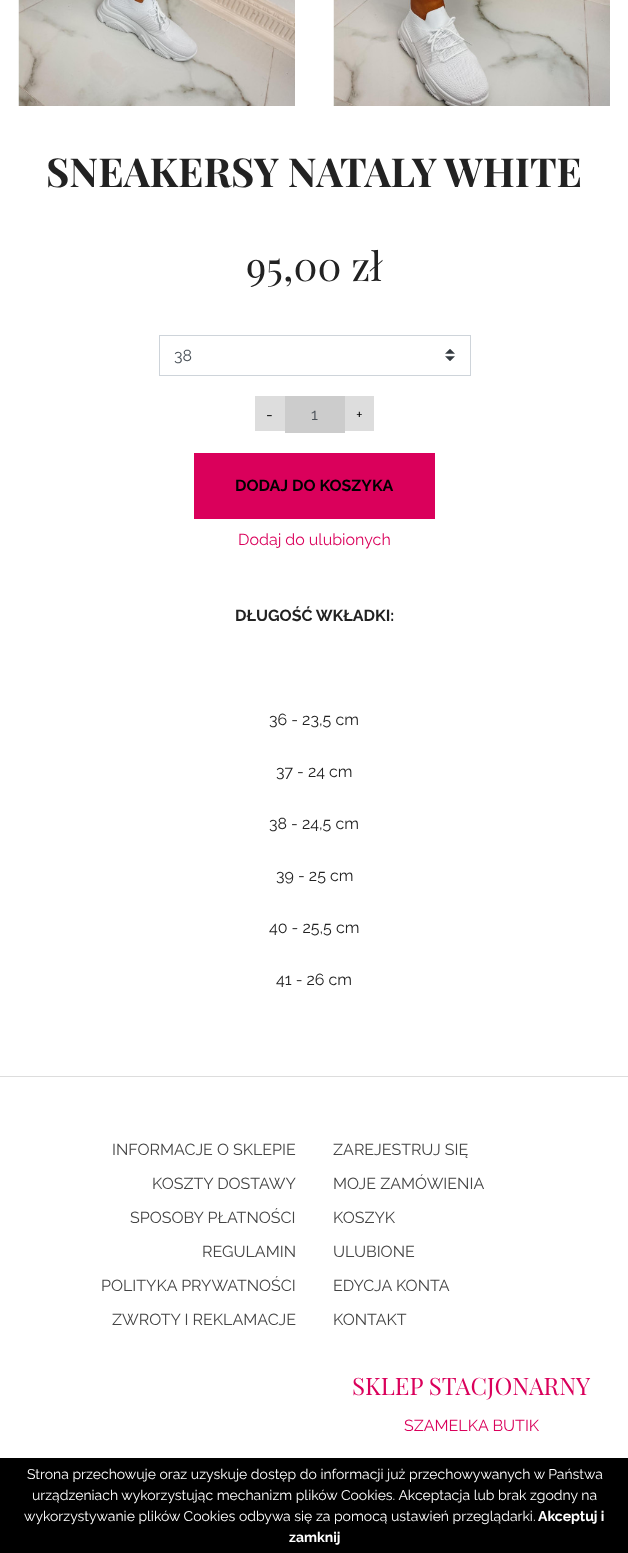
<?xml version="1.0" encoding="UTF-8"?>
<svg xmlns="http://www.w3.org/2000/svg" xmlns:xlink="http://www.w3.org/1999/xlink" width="628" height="1553">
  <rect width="100%" height="100%" fill="#ffffff" />
  <image x="18" y="0" width="277" height="106" xlink:href="image1.png" />
  <image x="333" y="0" width="277" height="106" xlink:href="image2.png" />
  <image x="445" y="349" width="10" height="12" xlink:href="image3.png" />
  <rect x="159.5" y="335.5" width="311" height="40" fill="none" stroke="#ced4da" />
  <rect x="255" y="396" width="30" height="35" fill="#dddddd" />
  <rect x="285" y="396" width="60" height="37" fill="#cccccc" />
  <rect x="345" y="396" width="29" height="35" fill="#dddddd" />
  <rect x="194" y="453" width="241" height="66" fill="#da005b" />
  <rect y="1076" width="628" height="1" fill="#dddddd" />
  <rect y="1458" width="628" height="95" fill="#000000" />
  <text x="46" y="187" style="font-family: Playfair Display; font-size: 40px; font-weight: bold; fill: #222222">SNEAKERSY NATALY WHITE</text>
  <text x="246" y="281" style="font-family: Playfair Display; font-size: 40px; fill: #222222">95,00 zł</text>
  <text x="174" y="361" style="font-family: Raleway; font-size: 16px; fill: #495057">38</text>
  <text x="266" y="420" style="font-family: Raleway; font-size: 16px; fill: #000000">-</text>
  <text x="311" y="420" style="font-family: Raleway; font-size: 16px; fill: #495057">1</text>
  <text x="356" y="420" style="font-family: Raleway; font-size: 16px; fill: #000000">+</text>
  <text x="235" y="491" style="font-family: Raleway; font-size: 16px; font-weight: bold; fill: #000000">DODAJ DO KOSZYKA</text>
  <text x="238" y="545" style="font-family: Raleway; font-size: 16px; fill: #da005b">Dodaj do ulubionych</text>
  <text x="235" y="621" style="font-family: Raleway; font-size: 16px; font-weight: bold; fill: #222222">DŁUGOŚĆ WKŁADKI:</text>
  <text x="269" y="725" style="font-family: Raleway; font-size: 16px; fill: #222222">36 - 23,5 cm</text>
  <text x="276" y="777" style="font-family: Raleway; font-size: 16px; fill: #222222">37 - 24 cm</text>
  <text x="269" y="829" style="font-family: Raleway; font-size: 16px; fill: #222222">38 - 24,5 cm</text>
  <text x="276" y="881" style="font-family: Raleway; font-size: 16px; fill: #222222">39 - 25 cm</text>
  <text x="269" y="933" style="font-family: Raleway; font-size: 16px; fill: #222222">40 - 25,5 cm</text>
  <text x="276" y="985" style="font-family: Raleway; font-size: 16px; fill: #222222">41 - 26 cm</text>
  <text x="112" y="1155" style="font-family: Raleway; font-size: 16px; fill: #444444">INFORMACJE O SKLEPIE</text>
  <text x="152" y="1189" style="font-family: Raleway; font-size: 16px; fill: #444444">KOSZTY DOSTAWY</text>
  <text x="130" y="1223" style="font-family: Raleway; font-size: 16px; fill: #444444">SPOSOBY PŁATNOŚCI</text>
  <text x="202" y="1257" style="font-family: Raleway; font-size: 16px; fill: #444444">REGULAMIN</text>
  <text x="101" y="1291" style="font-family: Raleway; font-size: 16px; fill: #444444">POLITYKA PRYWATNOŚCI</text>
  <text x="112" y="1325" style="font-family: Raleway; font-size: 16px; fill: #444444">ZWROTY I REKLAMACJE</text>
  <text x="333" y="1155" style="font-family: Raleway; font-size: 16px; fill: #444444">ZAREJESTRUJ SIĘ</text>
  <text x="333" y="1189" style="font-family: Raleway; font-size: 16px; fill: #444444">MOJE ZAMÓWIENIA</text>
  <text x="333" y="1223" style="font-family: Raleway; font-size: 16px; fill: #444444">KOSZYK</text>
  <text x="333" y="1257" style="font-family: Raleway; font-size: 16px; fill: #444444">ULUBIONE</text>
  <text x="333" y="1291" style="font-family: Raleway; font-size: 16px; fill: #444444">EDYCJA KONTA</text>
  <text x="333" y="1325" style="font-family: Raleway; font-size: 16px; fill: #444444">KONTAKT</text>
  <text x="352" y="1395" style="font-family: Playfair Display; font-size: 24px; fill: #da005b">SKLEP STACJONARNY</text>
  <text x="404" y="1431" style="font-family: Raleway; font-size: 16px; fill: #da005b">SZAMELKA BUTIK</text>
  <text x="27" y="1479" style="font-family: Raleway; font-size: 14px; fill: #ffffff">Strona przechowuje oraz uzyskuje dostęp do informacji już przechowywanych w Państwa</text>
  <text x="32" y="1500" style="font-family: Raleway; font-size: 14px; fill: #ffffff">urządzeniach wykorzystując mechanizm plików Cookies. Akceptacja lub brak zgodny na</text>
  <text x="24" y="1521" style="font-family: Raleway; font-size: 14px; fill: #ffffff">wykorzystywanie plików Cookies odbywa się za pomocą ustawień przeglądarki.</text>
  <text x="538" y="1521" style="font-family: Raleway; font-size: 14px; font-weight: bold; fill: #ffffff">Akceptuj i</text>
  <text x="289" y="1542" style="font-family: Raleway; font-size: 14px; font-weight: bold; fill: #ffffff">zamknij</text>
</svg>
